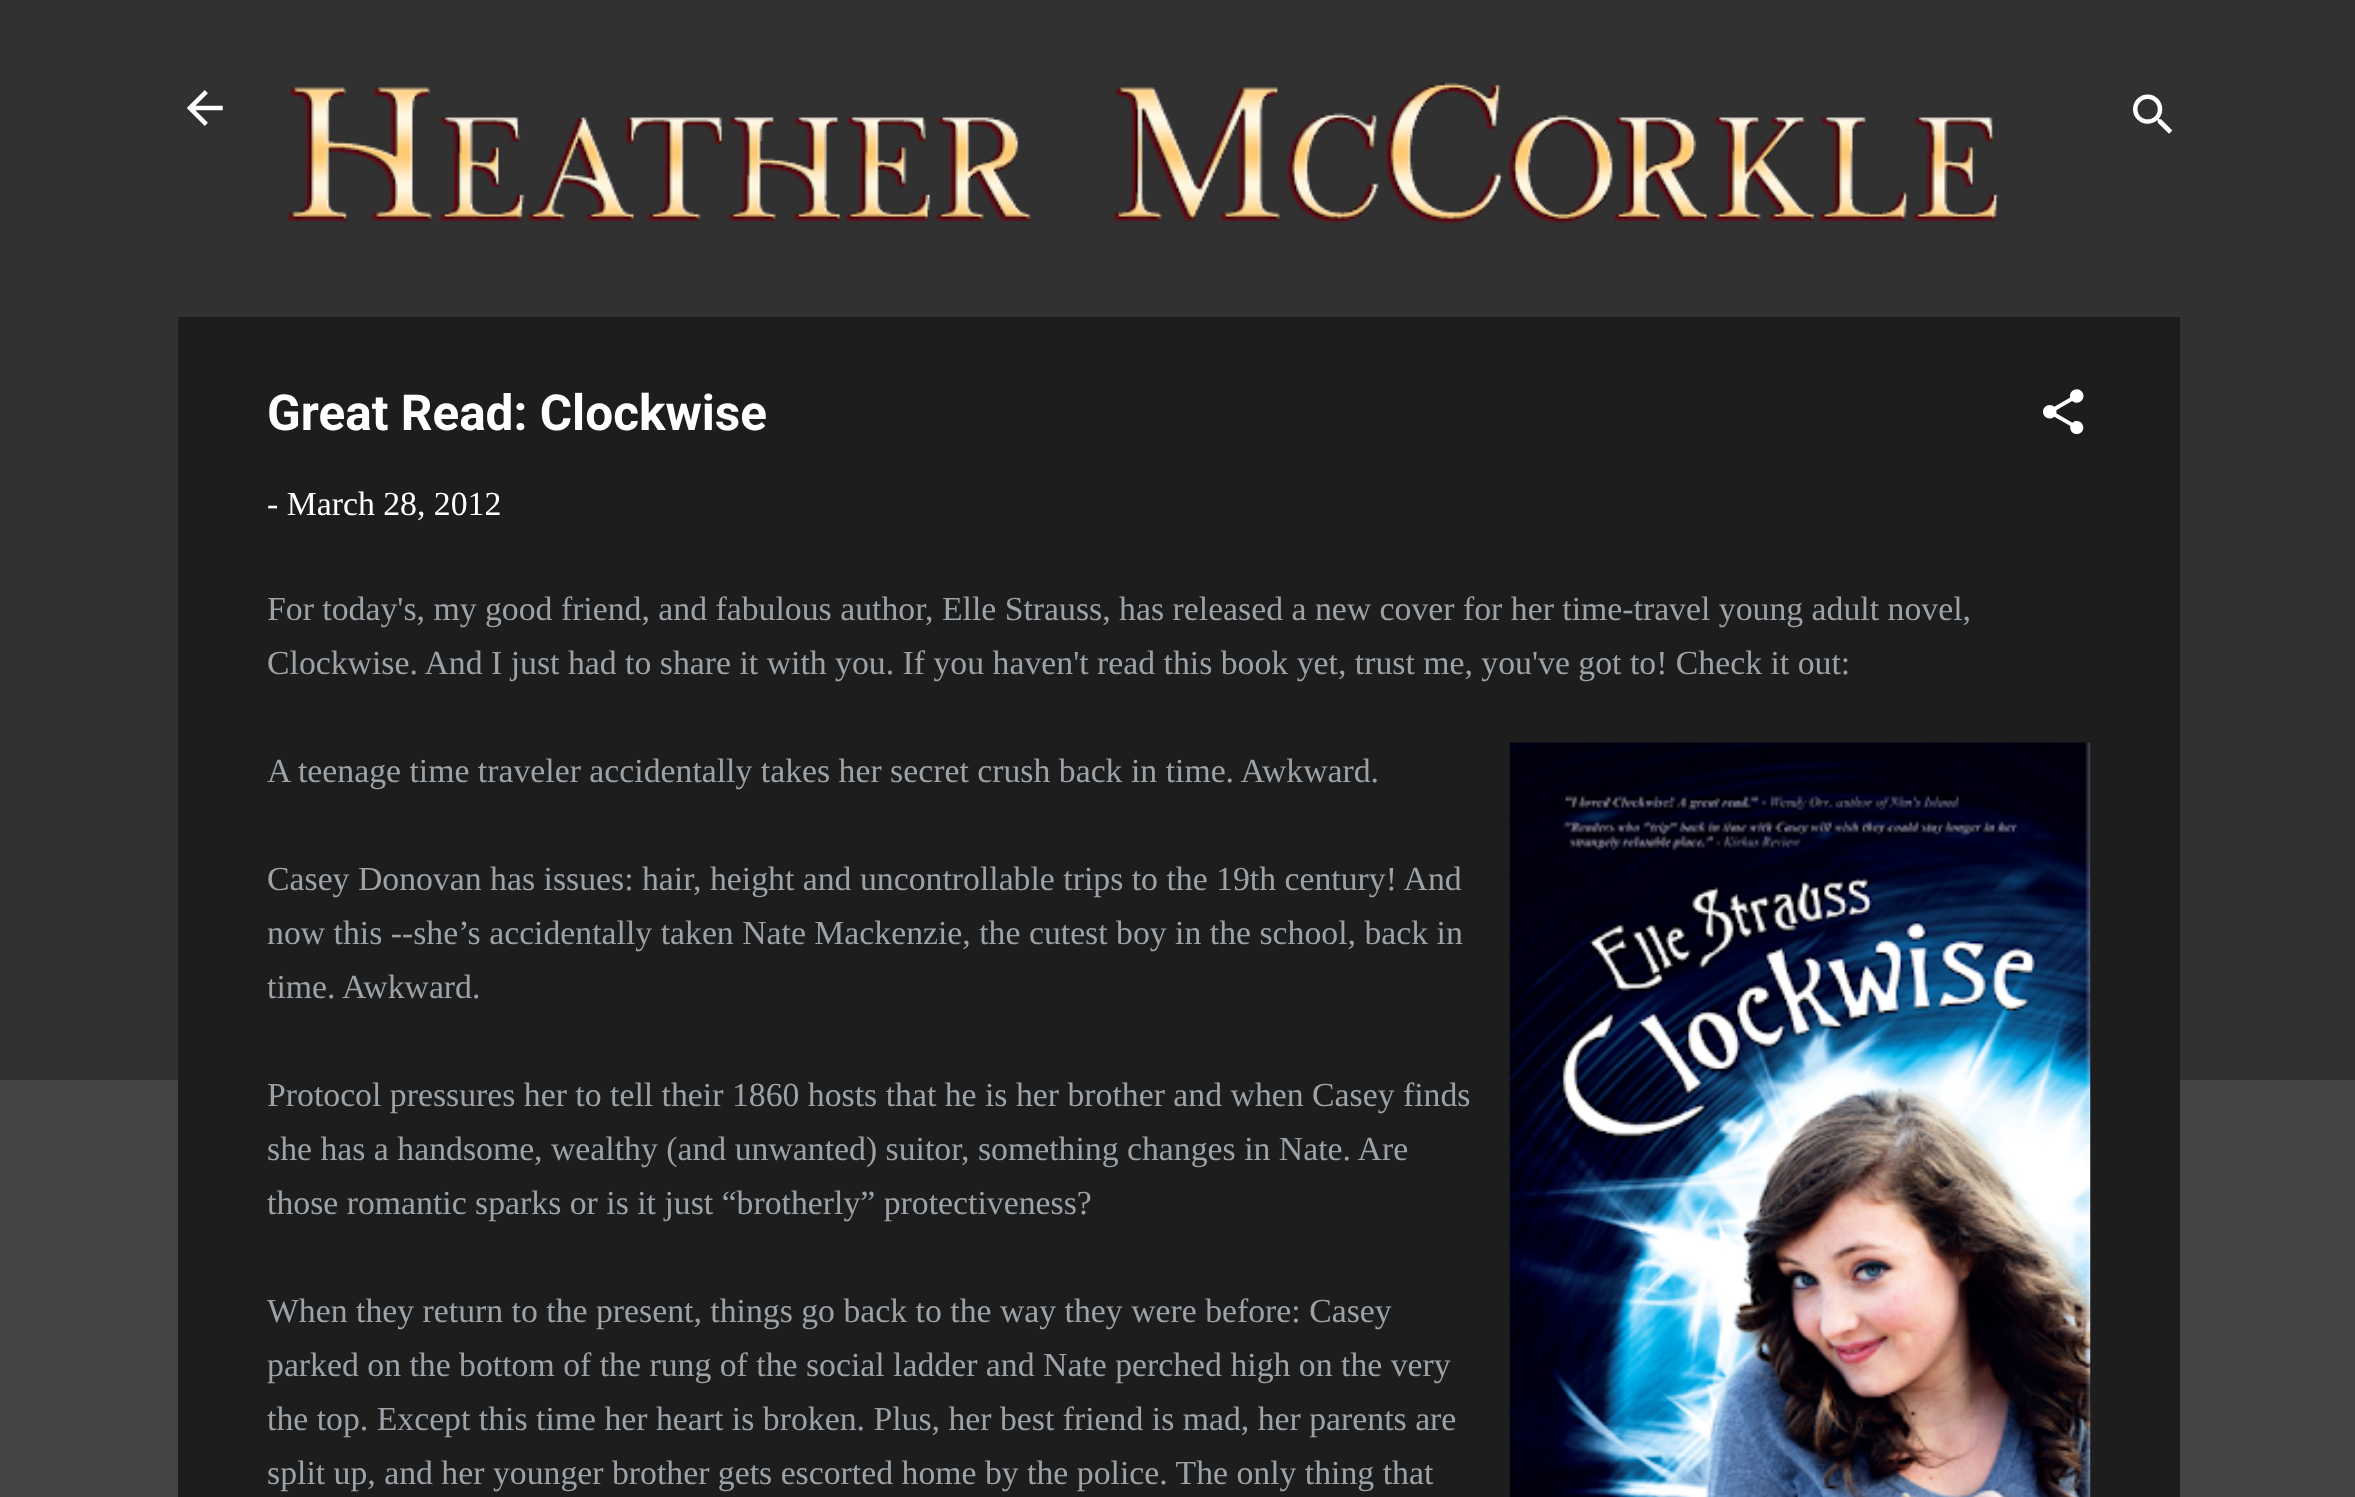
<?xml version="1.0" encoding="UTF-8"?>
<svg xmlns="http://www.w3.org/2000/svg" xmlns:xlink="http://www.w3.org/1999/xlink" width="2355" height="1497">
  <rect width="100%" height="100%" fill="#444444" />
  <rect width="2355" height="1080" fill="#313131" />
  <image x="186" y="90" width="37" height="36" xlink:href="image1.png" />
  <image x="287" y="82" width="1712" height="142" xlink:href="image2.png" />
  <image x="2133" y="94" width="40" height="40" xlink:href="image3.png" />
  <rect x="178" y="317" width="2002" height="1180" fill="#1d1d1d" />
  <image x="2043" y="389" width="41" height="45" xlink:href="image4.png" />
  <image x="1509" y="742" width="582" height="755" xlink:href="image5.png" />
  <text x="267" y="430" style="font-family: Roboto; font-size: 49.5px; font-weight: bold; fill: #ffffff">Great Read: Clockwise</text>
  <text x="267" y="515" style="font-family: Liberation Serif; font-size: 33.75px; fill: #ffffff">- March 28, 2012</text>
  <text x="267" y="620" style="font-family: Liberation Serif; font-size: 33.75px; fill: #9ba2a8">For today's, my good friend, and fabulous author, Elle Strauss, has released a new cover for her time-travel young adult novel,</text>
  <text x="267" y="674" style="font-family: Liberation Serif; font-size: 33.75px; fill: #9ba2a8">Clockwise. And I just had to share it with you. If you haven't read this book yet, trust me, you've got to! Check it out:</text>
  <text x="267" y="782" style="font-family: Liberation Serif; font-size: 33.75px; fill: #9ba2a8">A teenage time traveler accidentally takes her secret crush back in time. Awkward.</text>
  <text x="267" y="890" style="font-family: Liberation Serif; font-size: 33.75px; fill: #9ba2a8">Casey Donovan has issues: hair, height and uncontrollable trips to the 19th century! And</text>
  <text x="267" y="944" style="font-family: Liberation Serif; font-size: 33.75px; fill: #9ba2a8">now this --she’s accidentally taken Nate Mackenzie, the cutest boy in the school, back in</text>
  <text x="267" y="998" style="font-family: Liberation Serif; font-size: 33.75px; fill: #9ba2a8">time. Awkward.</text>
  <text x="267" y="1106" style="font-family: Liberation Serif; font-size: 33.75px; fill: #9ba2a8">Protocol pressures her to tell their 1860 hosts that he is her brother and when Casey finds</text>
  <text x="267" y="1160" style="font-family: Liberation Serif; font-size: 33.75px; fill: #9ba2a8">she has a handsome, wealthy (and unwanted) suitor, something changes in Nate. Are</text>
  <text x="267" y="1214" style="font-family: Liberation Serif; font-size: 33.75px; fill: #9ba2a8">those romantic sparks or is it just “brotherly” protectiveness?</text>
  <text x="267" y="1322" style="font-family: Liberation Serif; font-size: 33.75px; fill: #9ba2a8">When they return to the present, things go back to the way they were before: Casey</text>
  <text x="267" y="1376" style="font-family: Liberation Serif; font-size: 33.75px; fill: #9ba2a8">parked on the bottom of the rung of the social ladder and Nate perched high on the very</text>
  <text x="267" y="1430" style="font-family: Liberation Serif; font-size: 33.75px; fill: #9ba2a8">the top. Except this time her heart is broken. Plus, her best friend is mad, her parents are</text>
  <text x="267" y="1484" style="font-family: Liberation Serif; font-size: 33.75px; fill: #9ba2a8">split up, and her younger brother gets escorted home by the police. The only thing that</text>
</svg>
